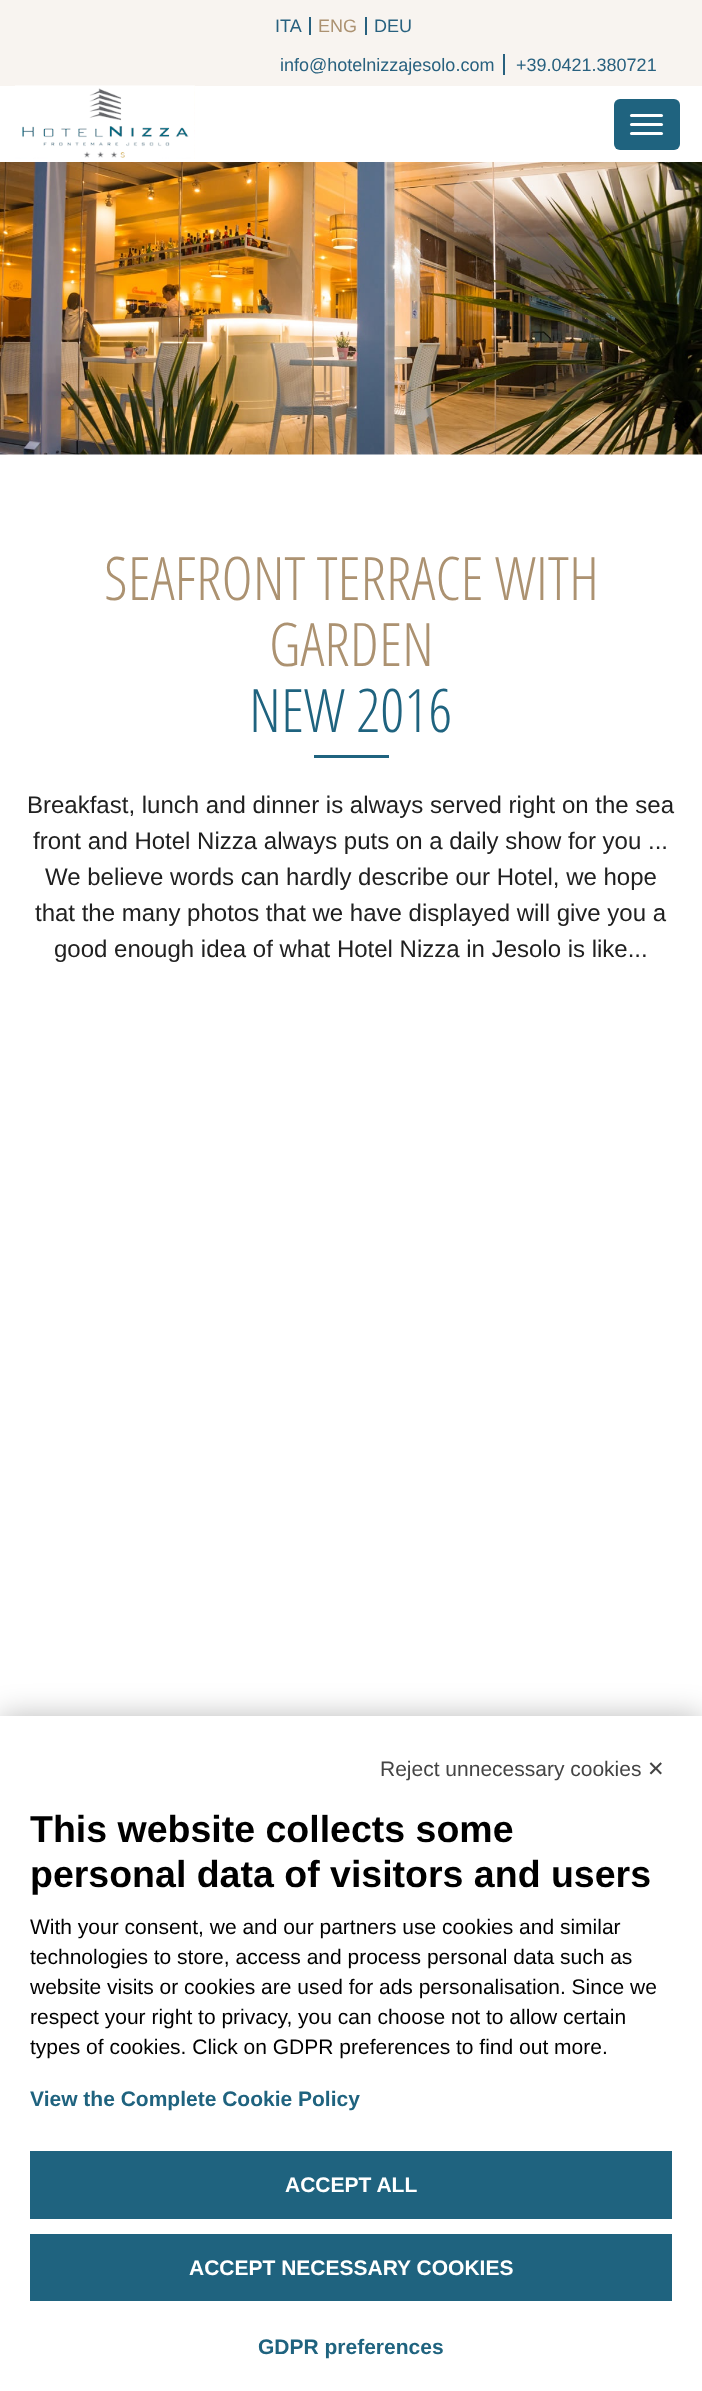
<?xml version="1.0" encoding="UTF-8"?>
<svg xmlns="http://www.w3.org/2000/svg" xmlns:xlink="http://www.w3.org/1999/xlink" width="702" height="2391">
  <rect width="100%" height="100%" fill="#ffffff" />
  <rect width="702" height="86" fill="#f8f4f0" />
  <rect x="309" y="17" width="2" height="18" fill="#28617f" />
  <rect x="365" y="17" width="2" height="18" fill="#28617f" />
  <rect x="503" y="54" width="2" height="21" fill="#28617f" />
  <image x="15" y="85" width="180" height="74" xlink:href="image1.png" />
  <rect x="614" y="99" width="66" height="51" rx="6" fill="#1f637f" />
  <rect x="630" y="114" width="33" height="3" rx="1.5" fill="#ffffff" />
  <rect x="630" y="123" width="33" height="3" rx="1.5" fill="#ffffff" />
  <rect x="630" y="132" width="33" height="3" rx="1.5" fill="#ffffff" />
  <image x="0" y="162" width="702" height="293" xlink:href="image2.png" />
  <rect x="314" y="755" width="75" height="3" fill="#1f637f" />
  <rect y="1716" width="702" height="675" fill="#000000" fill-opacity="0.27" filter="blur(15px)" />
  <rect y="1716" width="702" height="675" fill="#ffffff" />
  <rect x="30" y="2151" width="642" height="68" fill="#1f637f" />
  <rect x="30" y="2234" width="642" height="67" fill="#1f637f" />
  <text x="275" y="32" style="font-family: Liberation Sans; font-size: 18px; fill: #28617f">ITA</text>
  <text x="318" y="32" style="font-family: Liberation Sans; font-size: 18px; fill: #ac9271">ENG</text>
  <text x="374" y="32" style="font-family: Liberation Sans; font-size: 18px; fill: #28617f">DEU</text>
  <text x="280" y="71" style="font-family: Liberation Sans; font-size: 18px; fill: #28617f">info@hotelnizzajesolo.com</text>
  <text x="516" y="71" style="font-family: Liberation Sans; font-size: 18px; fill: #28617f">+39.0421.380721</text>
  <text x="104" y="600" style="font-family: Open Sans Condensed; font-size: 60px; font-weight: 300; fill: #ac9271">SEAFRONT TERRACE WITH</text>
  <text x="269" y="666" style="font-family: Open Sans Condensed; font-size: 60px; font-weight: 300; fill: #ac9271">GARDEN</text>
  <text x="249" y="732" style="font-family: Open Sans Condensed; font-size: 60px; font-weight: 300; fill: #1f637f">NEW 2016</text>
  <text x="27" y="813" style="font-family: Liberation Sans; font-size: 24px; fill: #202020">Breakfast, lunch and dinner is always served right on the sea</text>
  <text x="33" y="849" style="font-family: Liberation Sans; font-size: 24px; fill: #202020">front and Hotel Nizza always puts on a daily show for you ...</text>
  <text x="45" y="885" style="font-family: Liberation Sans; font-size: 24px; fill: #202020">We believe words can hardly describe our Hotel, we hope</text>
  <text x="35" y="921" style="font-family: Liberation Sans; font-size: 24px; fill: #202020">that the many photos that we have displayed will give you a</text>
  <text x="54" y="957" style="font-family: Liberation Sans; font-size: 24px; fill: #202020">good enough idea of what Hotel Nizza in Jesolo is like...</text>
  <text x="380" y="1776" style="font-family: Liberation Sans; font-size: 21px; fill: #444444">Reject unnecessary cookies</text>
  <text x="647" y="1776" style="font-family: DejaVu Sans; font-size: 21px; fill: #444444">✕</text>
  <text x="30" y="1842" style="font-family: Liberation Sans; font-size: 37.5px; font-weight: bold; fill: #000000">This website collects some</text>
  <text x="30" y="1887" style="font-family: Liberation Sans; font-size: 37.5px; font-weight: bold; fill: #000000">personal data of visitors and users</text>
  <text x="30" y="1934" style="font-family: Liberation Sans; font-size: 21px; fill: #000000">With your consent, we and our partners use cookies and similar</text>
  <text x="30" y="1964" style="font-family: Liberation Sans; font-size: 21px; fill: #000000">technologies to store, access and process personal data such as</text>
  <text x="30" y="1994" style="font-family: Liberation Sans; font-size: 21px; fill: #000000">website visits or cookies are used for ads personalisation. Since we</text>
  <text x="30" y="2024" style="font-family: Liberation Sans; font-size: 21px; fill: #000000">respect your right to privacy, you can choose not to allow certain</text>
  <text x="30" y="2054" style="font-family: Liberation Sans; font-size: 21px; fill: #000000">types of cookies. Click on GDPR preferences to find out more.</text>
  <text x="30" y="2106" style="font-family: Liberation Sans; font-size: 21px; font-weight: bold; fill: #1f637f">View the Complete Cookie Policy</text>
  <text x="285" y="2192" style="font-family: Liberation Sans; font-size: 21px; font-weight: bold; fill: #ffffff">ACCEPT ALL</text>
  <text x="189" y="2275" style="font-family: Liberation Sans; font-size: 21px; font-weight: bold; fill: #ffffff">ACCEPT NECESSARY COOKIES</text>
  <text x="258" y="2354" style="font-family: Liberation Sans; font-size: 21px; font-weight: bold; fill: #1f637f">GDPR preferences</text>
</svg>
